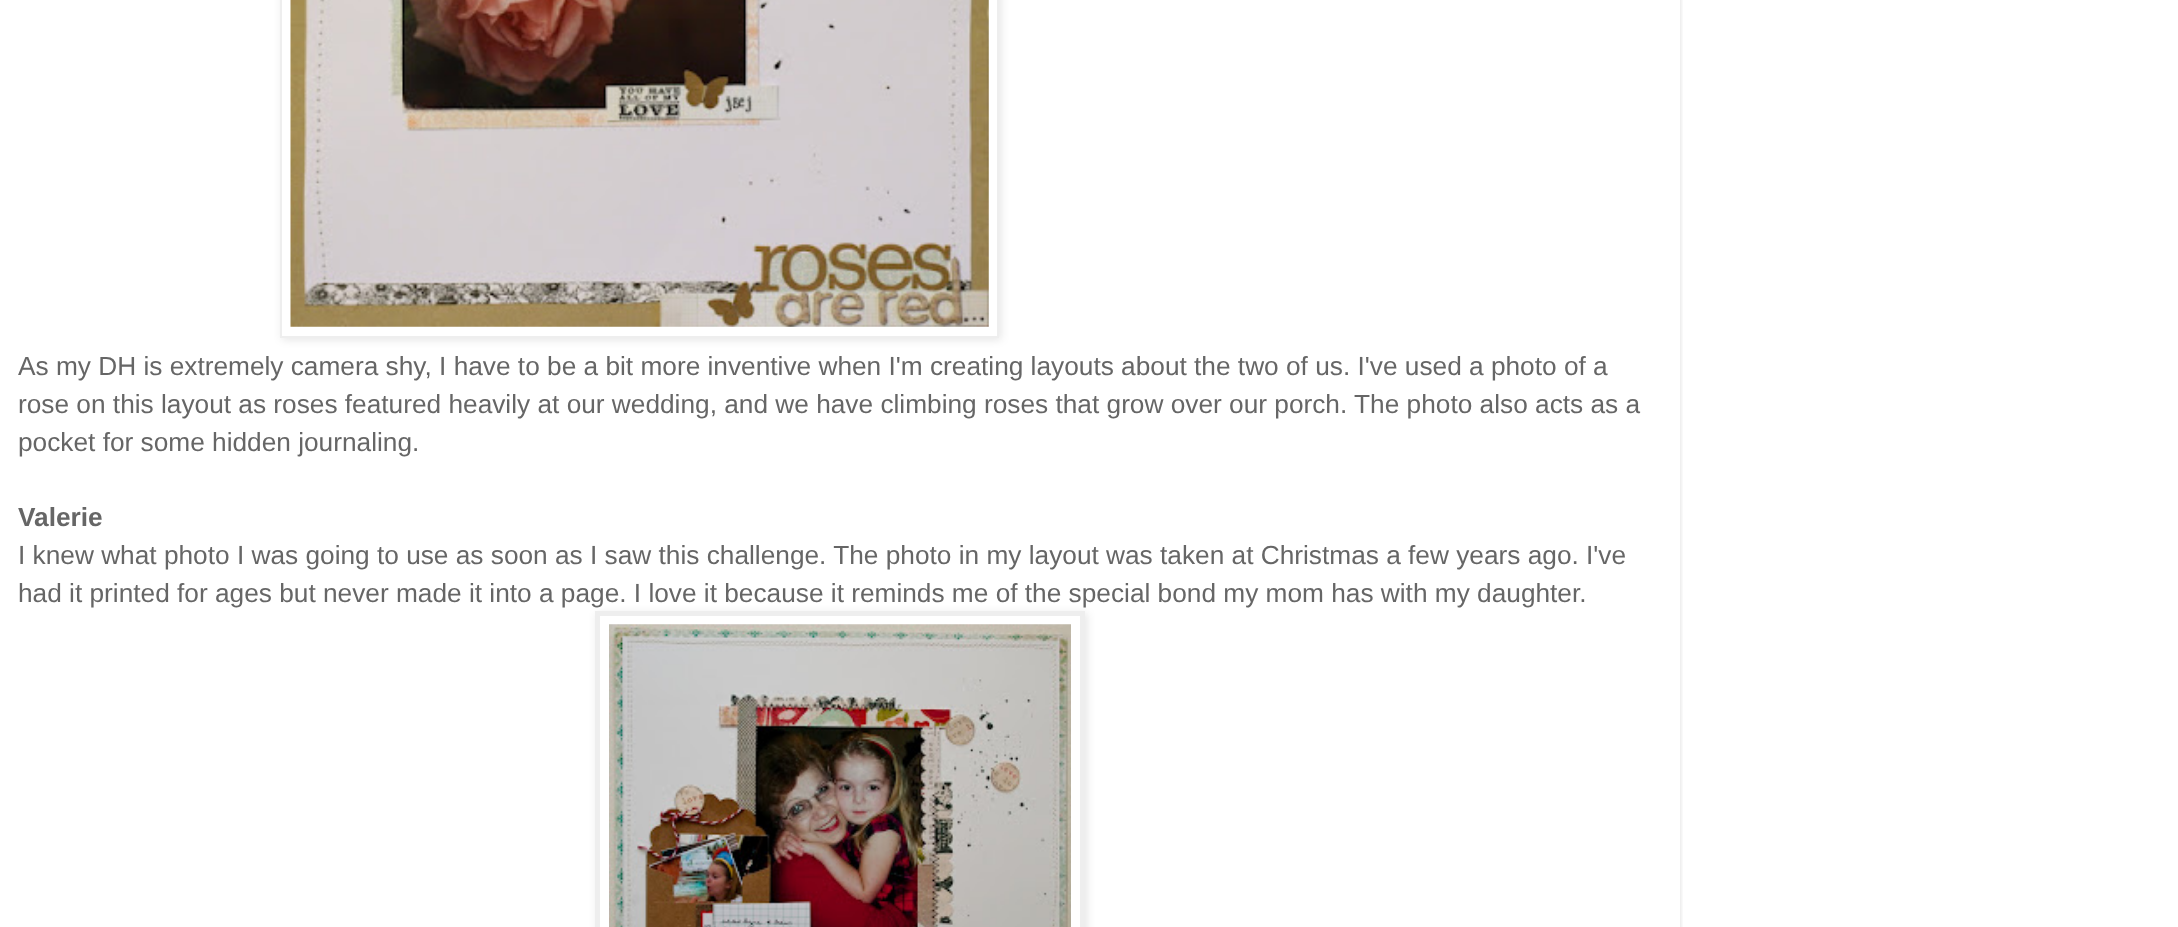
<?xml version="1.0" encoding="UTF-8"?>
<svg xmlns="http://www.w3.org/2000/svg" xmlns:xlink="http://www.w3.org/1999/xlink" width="2178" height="927">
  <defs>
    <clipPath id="clip1"><rect x="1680" y="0" width="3" height="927" /></clipPath>
    <clipPath id="clip2"><path d="M 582 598 h 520 v 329 h -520 z m 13 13 h 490 v 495 h -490 z" clip-rule="evenodd" /></clipPath>
  </defs>
  <rect width="100%" height="100%" fill="#ffffff" />
  <g clip-path="url(#clip1)">
    <rect y="-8" width="1680" height="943" fill="#000000" fill-opacity="0.15" filter="blur(2.5px)" />
  </g>
  <rect x="282" y="-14" width="719" height="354" fill="#000000" fill-opacity="0.1" filter="blur(4.5px)" />
  <rect x="281" y="-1" width="717" height="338" fill="#ffffff" stroke="#eeeeee" stroke-width="2" />
  <image x="290" y="0" width="699" height="327" xlink:href="image1.png" />
  <g clip-path="url(#clip2)">
    <rect x="597" y="613" width="490" height="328" fill="#000000" fill-opacity="0.1" filter="blur(4.5px)" />
  </g>
  <rect x="595" y="611" width="490" height="5" fill="#eeeeee" />
  <path d="M 595 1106 v -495 l 5 5 v 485 z" fill="#eeeeee" />
  <image x="609" y="624" width="462" height="303" xlink:href="image2.png" />
  <path d="M 1085 611 v 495 l -5 -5 v -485 z" fill="#eeeeee" />
  <text x="18" y="375" style="font-family: Liberation Sans; font-size: 26.25px; fill: #666666">As my DH is extremely camera shy, I have to be a bit more inventive when I'm creating layouts about the two of us. I've used a photo of a</text>
  <text x="18" y="413" style="font-family: Liberation Sans; font-size: 26.25px; fill: #666666">rose on this layout as roses featured heavily at our wedding, and we have climbing roses that grow over our porch. The photo also acts as a</text>
  <text x="18" y="451" style="font-family: Liberation Sans; font-size: 26.25px; fill: #666666">pocket for some hidden journaling.</text>
  <text x="18" y="526" style="font-family: Liberation Sans; font-size: 26.25px; font-weight: bold; fill: #666666">Valerie</text>
  <text x="18" y="564" style="font-family: Liberation Sans; font-size: 26.25px; fill: #666666">I knew what photo I was going to use as soon as I saw this challenge. The photo in my layout was taken at Christmas a few years ago. I've</text>
  <text x="18" y="602" style="font-family: Liberation Sans; font-size: 26.25px; fill: #666666">had it printed for ages but never made it into a page. I love it because it reminds me of the special bond my mom has with my daughter.</text>
</svg>
